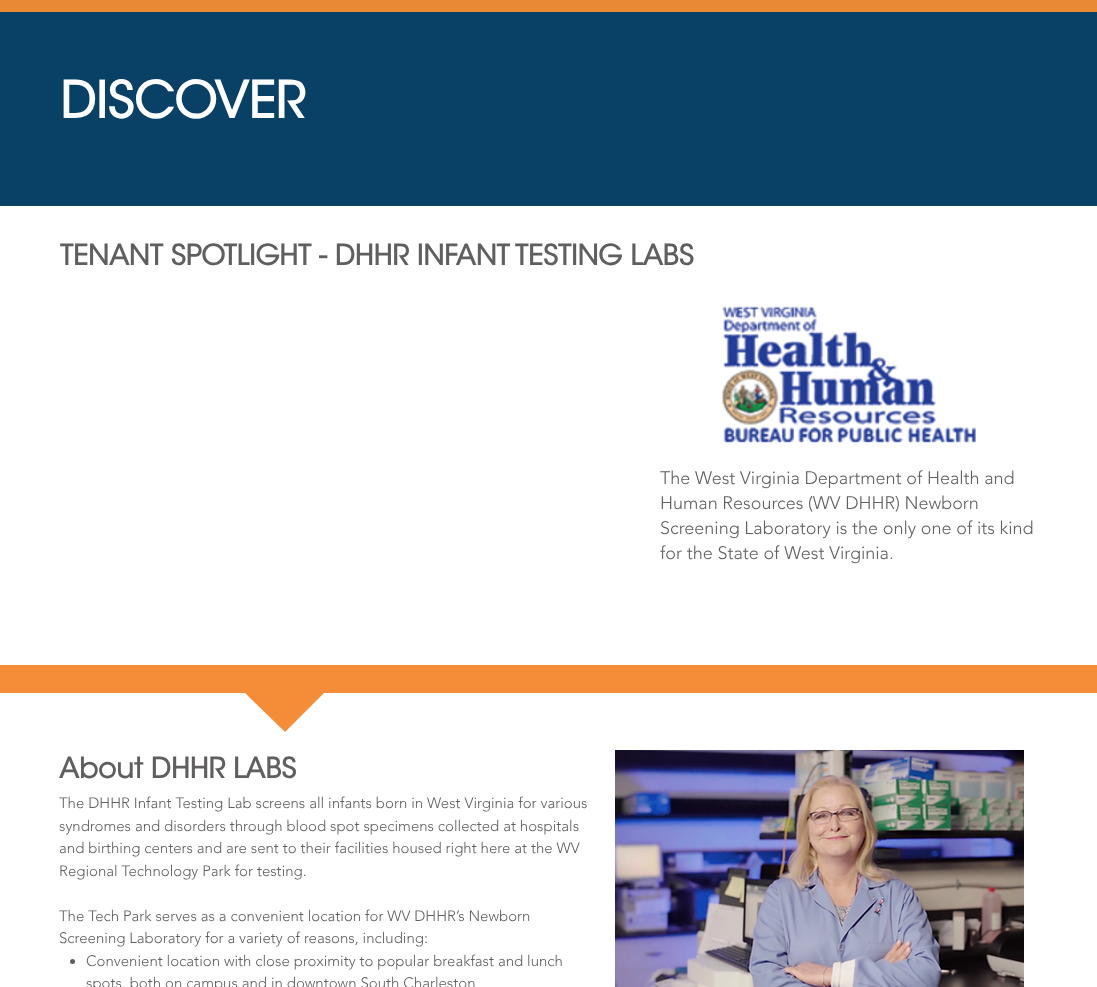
<?xml version="1.0" encoding="UTF-8"?>
<svg xmlns="http://www.w3.org/2000/svg" xmlns:xlink="http://www.w3.org/1999/xlink" width="1097" height="987">
  <rect width="100%" height="100%" fill="#ffffff" />
  <rect width="1097" height="12" fill="#ea8933" />
  <rect y="12" width="1097" height="3" fill="#094066" />
  <rect y="15" width="1097" height="191" fill="#094166" />
  <image x="722" y="306" width="254" height="137" xlink:href="image1.png" />
  <rect y="665" width="1097" height="28" fill="#f48c38" />
  <path d="M 327 690 l -42 42 l -43 -42 z" fill="#f48c38" />
  <circle cx="72.5" cy="961.5" r="2.5" fill="#605e5e" />
  <image x="615" y="750" width="409" height="237" xlink:href="image2.png" />
  <text x="60" y="118" style="font-family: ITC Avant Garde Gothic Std; font-size: 50px; font-weight: bold; fill: #ffffff">DISCOVER</text>
  <text x="60" y="265" style="font-family: ITC Avant Garde Gothic Std; font-size: 28px; font-weight: bold; fill: #605e5e">TENANT SPOTLIGHT - DHHR INFANT TESTING LABS</text>
  <text x="660" y="484" style="font-family: 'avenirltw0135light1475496'; font-size: 18px; font-weight: 300; fill: #605e5e">The West Virginia Department of Health and</text>
  <text x="660" y="509" style="font-family: 'avenirltw0135light1475496'; font-size: 18px; font-weight: 300; fill: #605e5e">Human Resources (WV DHHR) Newborn</text>
  <text x="660" y="534" style="font-family: 'avenirltw0135light1475496'; font-size: 18px; font-weight: 300; fill: #605e5e">Screening Laboratory is the only one of its kind</text>
  <text x="660" y="559" style="font-family: 'avenirltw0135light1475496'; font-size: 18px; font-weight: 300; fill: #605e5e">for the State of West Virginia.</text>
  <text x="59" y="778" style="font-family: ITC Avant Garde Gothic Std; font-size: 28px; font-weight: bold; fill: #605e5e">About DHHR LABS</text>
  <text x="59" y="808" style="font-family: 'avenirltw0135light1475496'; font-size: 15px; font-weight: 300; fill: #605e5e">The DHHR Infant Testing Lab screens all infants born in West Virginia for various</text>
  <text x="59" y="831" style="font-family: 'avenirltw0135light1475496'; font-size: 15px; font-weight: 300; fill: #605e5e">syndromes and disorders through blood spot specimens collected at hospitals</text>
  <text x="59" y="853" style="font-family: 'avenirltw0135light1475496'; font-size: 15px; font-weight: 300; fill: #605e5e">and birthing centers and are sent to their facilities housed right here at the WV</text>
  <text x="59" y="876" style="font-family: 'avenirltw0135light1475496'; font-size: 15px; font-weight: 300; fill: #605e5e">Regional Technology Park for testing.</text>
  <text x="59" y="921" style="font-family: 'avenirltw0135light1475496'; font-size: 15px; font-weight: 300; fill: #605e5e">The Tech Park serves as a convenient location for WV DHHR’s Newborn</text>
  <text x="59" y="943" style="font-family: 'avenirltw0135light1475496'; font-size: 15px; font-weight: 300; fill: #605e5e">Screening Laboratory for a variety of reasons, including:</text>
  <text x="86" y="966" style="font-family: 'avenirltw0135light1475496'; font-size: 15px; font-weight: 300; fill: #605e5e">Convenient location with close proximity to popular breakfast and lunch</text>
  <text x="86" y="988" style="font-family: 'avenirltw0135light1475496'; font-size: 15px; font-weight: 300; fill: #605e5e">spots, both on campus and in downtown South Charleston</text>
</svg>
